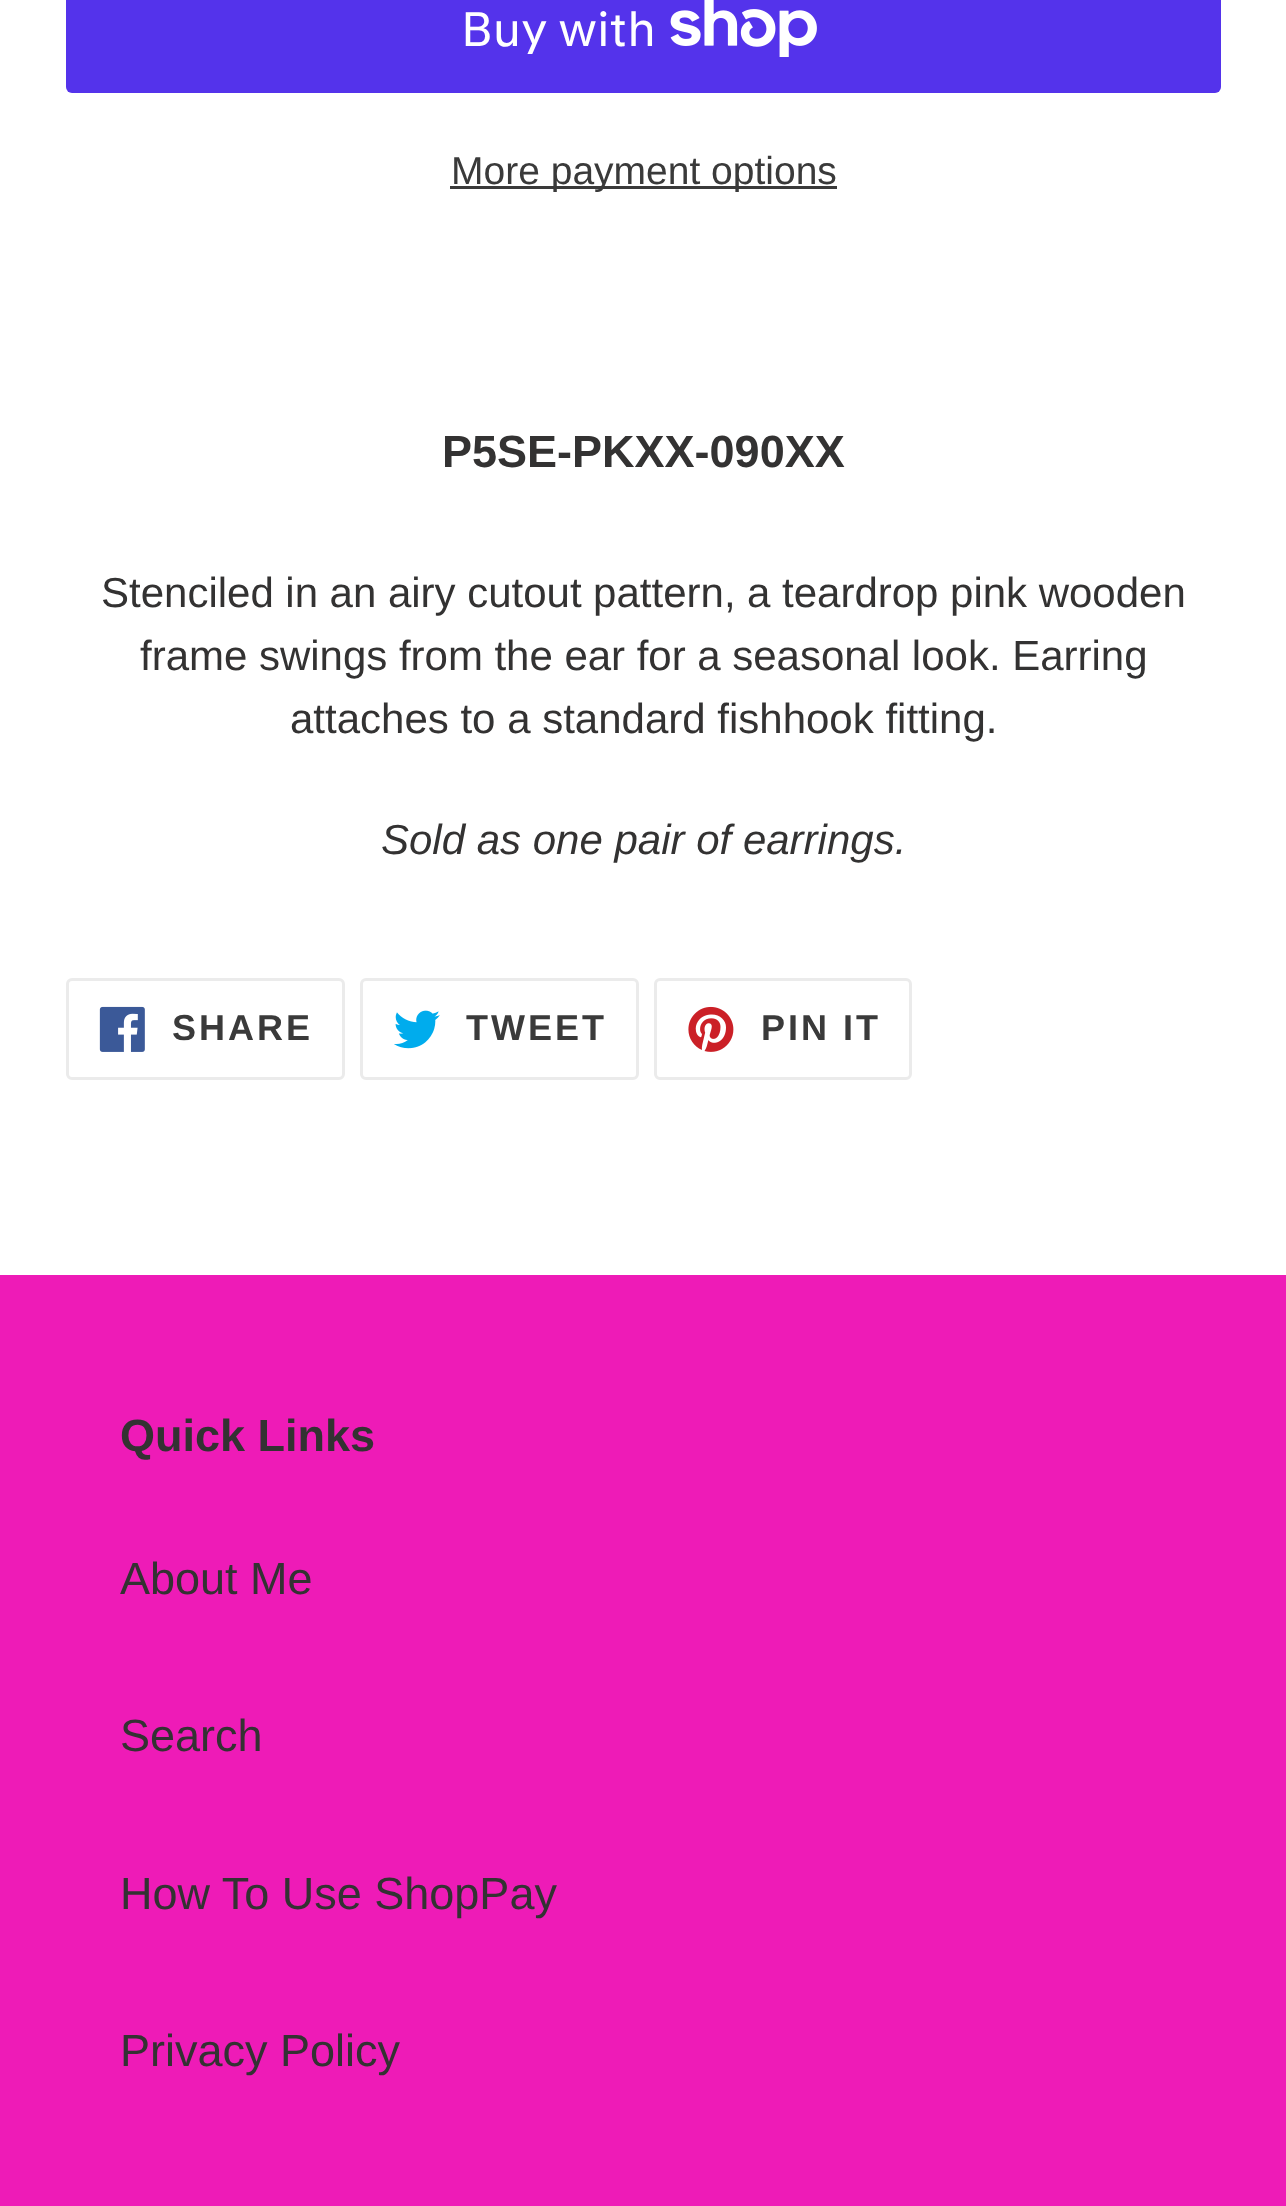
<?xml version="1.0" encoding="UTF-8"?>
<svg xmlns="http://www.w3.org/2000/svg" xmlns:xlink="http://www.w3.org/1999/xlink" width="1286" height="2206">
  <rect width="100%" height="100%" fill="#ffffff" />
  <rect x="66" y="-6" width="1155" height="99" rx="6" fill="#5433eb" />
  <image x="670" y="0" width="147" height="57" xlink:href="image1.png" />
  <rect x="450" y="186" width="387" height="3" fill="#3a3a3a" />
  <rect x="67.5" y="979.5" width="276" height="99" rx="4.5" fill="none" stroke="#ebebeb" stroke-width="3" />
  <image x="99" y="1006" width="46" height="46" xlink:href="image2.png" />
  <rect x="361.5" y="979.5" width="276" height="99" rx="4.5" fill="none" stroke="#ebebeb" stroke-width="3" />
  <image x="394" y="1010" width="46" height="39" xlink:href="image3.png" />
  <rect x="655.5" y="979.5" width="255" height="99" rx="4.5" fill="none" stroke="#ebebeb" stroke-width="3" />
  <image x="688" y="1006" width="46" height="46" xlink:href="image4.png" />
  <rect y="1275" width="1286" height="931" fill="#ee1bb7" />
  <text x="461" y="46" style="font-family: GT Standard; font-size: 48px; fill: #ffffff">Buy with</text>
  <text x="451" y="184" style="font-family: Liberation Sans; font-size: 39px; fill: #3a3a3a">More payment options</text>
  <text x="442" y="467" style="font-family: Liberation Sans; font-size: 45px; font-weight: bold; fill: #333232">P5SE-PKXX-090XX</text>
  <text x="101" y="607" word-spacing="-0.1" style="font-family: Liberation Sans; font-size: 42px; fill: #333232">Stenciled in an airy cutout pattern, a teardrop pink wooden</text>
  <text x="140" y="670" word-spacing="-0.1" style="font-family: Liberation Sans; font-size: 42px; fill: #333232">frame swings from the ear for a seasonal look. Earring</text>
  <text x="290" y="733" style="font-family: Liberation Sans; font-size: 42px; fill: #333232">attaches to a standard fishhook fitting.</text>
  <text x="381" y="854" style="font-family: Liberation Sans; font-size: 42px; font-style: italic; fill: #333232">Sold as one pair of earrings.</text>
  <text x="172" y="1040" style="font-family: Liberation Sans; font-size: 36px; font-weight: bold; letter-spacing: 3px; fill: #3a3a3a">SHARE</text>
  <text x="466" y="1040" style="font-family: Liberation Sans; font-size: 36px; font-weight: bold; letter-spacing: 3px; fill: #3a3a3a">TWEET</text>
  <text x="761" y="1040" style="font-family: Liberation Sans; font-size: 36px; font-weight: bold; letter-spacing: 3px; fill: #3a3a3a">PIN IT</text>
  <text x="120" y="1451" style="font-family: Liberation Sans; font-size: 45px; font-weight: bold; fill: #333232">Quick Links</text>
  <text x="120" y="1594" style="font-family: Liberation Sans; font-size: 45px; fill: #333232">About Me</text>
  <text x="120" y="1751" style="font-family: Liberation Sans; font-size: 45px; fill: #333232">Search</text>
  <text x="120" y="1909" style="font-family: Liberation Sans; font-size: 45px; fill: #333232">How To Use ShopPay</text>
  <text x="120" y="2066" style="font-family: Liberation Sans; font-size: 45px; fill: #333232">Privacy Policy</text>
</svg>
